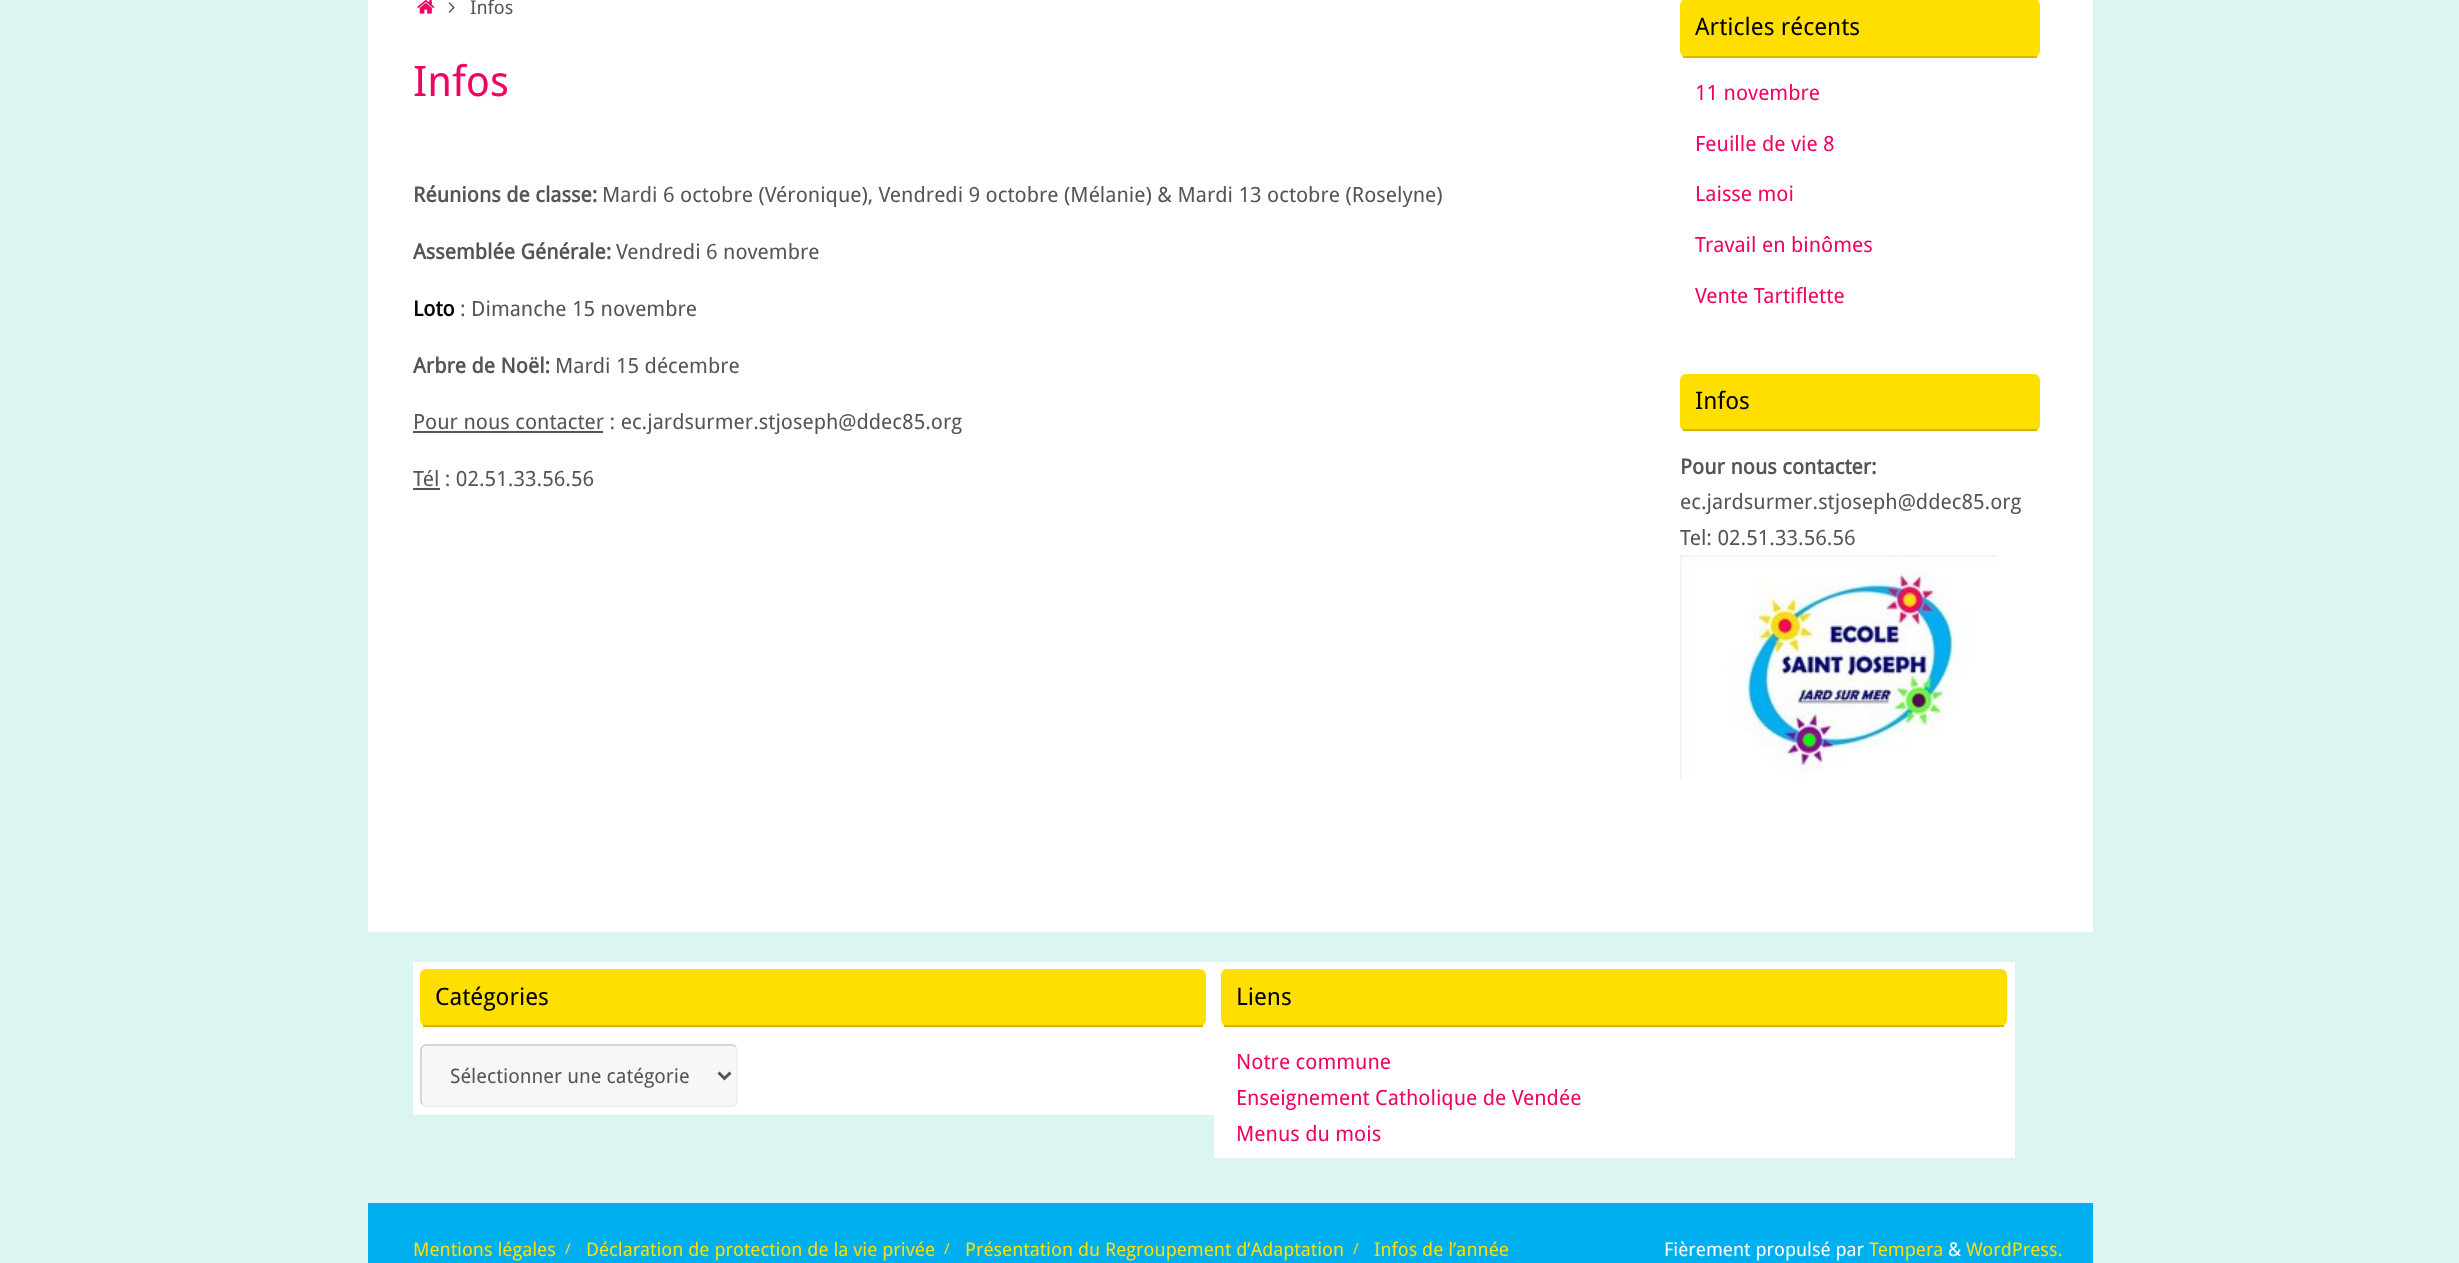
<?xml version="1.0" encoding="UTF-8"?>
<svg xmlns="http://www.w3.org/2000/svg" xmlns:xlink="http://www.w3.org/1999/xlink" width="2459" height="1263">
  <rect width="100%" height="100%" fill="#dbf5f3" />
  <rect x="368" width="1725" height="932" fill="#ffffff" />
  <image x="417" y="0" width="18" height="14" xlink:href="image1.png" />
  <image x="448" y="2" width="7" height="11" xlink:href="image2.png" />
  <rect x="413" y="431" width="190" height="2" fill="#555555" />
  <rect x="413" y="488" width="27" height="2" fill="#555555" />
  <rect x="1680" y="-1" width="360" height="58" rx="6" fill="#fedf00" />
  <rect x="1683" y="56" width="354" height="2" fill="#d6b700" />
  <rect x="1680" y="374" width="360" height="57" rx="6" fill="#fedf00" />
  <rect x="1683" y="429" width="354" height="2" fill="#d6b700" />
  <image x="1680" y="555" width="318" height="225" xlink:href="image3.png" />
  <rect x="413" y="962" width="801" height="153" fill="#ffffff" />
  <rect x="420" y="969" width="786" height="57" rx="6" fill="#fedf00" />
  <rect x="423" y="1025" width="780" height="2" fill="#d6b700" />
  <rect x="420" y="1044" width="318" height="63" rx="6" fill="#f7f7f7" />
  <path d="M 735.5 1046.5 c 1 1 1.5 2 1.5 3.5 v 51 c 0 1.5 -0.5 2.5 -1.5 3.5 c -1 1 -2 1.5 -3.5 1.5 h -306 c -1.5 0 -2.5 -0.5 -3.5 -1.5" fill="none" stroke="#eeeeee" stroke-width="1.5" />
  <path d="M 422.5 1104.5 c -1 -1 -1.5 -2 -1.5 -3.5 v -51 c 0 -1.5 0.5 -2.5 1.5 -3.5 c 1 -1 2 -1.5 3.5 -1.5 h 306 c 1.5 0 2.5 0.5 3.5 1.5" fill="none" stroke="#cccccc" stroke-width="1.5" />
  <path d="M 718.5 1072.5 l 6 6 l 6 -6" fill="none" stroke="#555555" stroke-width="3" />
  <rect x="1214" y="962" width="801" height="196" fill="#ffffff" />
  <rect x="1221" y="969" width="786" height="57" rx="6" fill="#fedf00" />
  <rect x="1224" y="1025" width="780" height="2" fill="#d6b700" />
  <rect x="368" y="1203" width="1725" height="60" fill="#00aff0" />
  <text x="470" y="14" style="font-family: Droid Sans; font-size: 18.9px; fill: #555555">Infos</text>
  <text x="413" y="96" style="font-family: Droid Sans; font-size: 42px; fill: #ef0363">Infos</text>
  <text x="413" y="202" style="font-family: Droid Sans; font-size: 21px; font-weight: bold; fill: #555555">Réunions de classe:</text>
  <text x="602" y="202" style="font-family: Droid Sans; font-size: 21px; fill: #555555">Mardi 6 octobre (Véronique), Vendredi 9 octobre (Mélanie) &amp; Mardi 13 octobre (Roselyne)</text>
  <text x="413" y="259" style="font-family: Droid Sans; font-size: 21px; font-weight: bold; fill: #555555">Assemblée Générale:</text>
  <text x="616" y="259" style="font-family: Droid Sans; font-size: 21px; fill: #555555">Vendredi 6 novembre</text>
  <text x="413" y="316" style="font-family: Droid Sans; font-size: 21px; font-weight: bold; fill: #000000">Loto</text>
  <text x="460" y="316" style="font-family: Droid Sans; font-size: 21px; fill: #555555">: Dimanche 15 novembre</text>
  <text x="413" y="373" style="font-family: Droid Sans; font-size: 21px; font-weight: bold; fill: #555555">Arbre de Noël:</text>
  <text x="555" y="373" style="font-family: Droid Sans; font-size: 21px; fill: #555555">Mardi 15 décembre</text>
  <text x="413" y="429" style="font-family: Droid Sans; font-size: 21px; fill: #555555">Pour nous contacter : ec.jardsurmer.stjoseph@ddec85.org</text>
  <text x="413" y="486" style="font-family: Droid Sans; font-size: 21px; fill: #555555">Tél : 02.51.33.56.56</text>
  <text x="1695" y="35" style="font-family: Droid Sans; font-size: 24px; fill: #000000">Articles récents</text>
  <text x="1695" y="100" style="font-family: Droid Sans; font-size: 21px; fill: #ef0363">11 novembre</text>
  <text x="1695" y="151" style="font-family: Droid Sans; font-size: 21px; fill: #ef0363">Feuille de vie 8</text>
  <text x="1695" y="201" style="font-family: Droid Sans; font-size: 21px; fill: #ef0363">Laisse moi</text>
  <text x="1695" y="252" style="font-family: Droid Sans; font-size: 21px; fill: #ef0363">Travail en binômes</text>
  <text x="1695" y="303" style="font-family: Droid Sans; font-size: 21px; fill: #ef0363">Vente Tartiflette</text>
  <text x="1695" y="409" style="font-family: Droid Sans; font-size: 24px; fill: #000000">Infos</text>
  <text x="1680" y="474" style="font-family: Droid Sans; font-size: 21px; font-weight: bold; fill: #555555">Pour nous contacter:</text>
  <text x="1680" y="509" style="font-family: Droid Sans; font-size: 21px; fill: #555555">ec.jardsurmer.stjoseph@ddec85.org</text>
  <text x="1680" y="545" style="font-family: Droid Sans; font-size: 21px; fill: #555555">Tel: 02.51.33.56.56</text>
  <text x="435" y="1005" style="font-family: Droid Sans; font-size: 24px; fill: #000000">Catégories</text>
  <text x="450" y="1083" style="font-family: Droid Sans; font-size: 20px; fill: #555555">Sélectionner une catégorie</text>
  <text x="1236" y="1005" style="font-family: Droid Sans; font-size: 24px; fill: #000000">Liens</text>
  <text x="1236" y="1069" style="font-family: Droid Sans; font-size: 21px; fill: #ef0363">Notre commune</text>
  <text x="1236" y="1105" style="font-family: Droid Sans; font-size: 21px; fill: #ef0363">Enseignement Catholique de Vendée</text>
  <text x="1236" y="1141" style="font-family: Droid Sans; font-size: 21px; fill: #ef0363">Menus du mois</text>
  <text x="413" y="1256" style="font-family: Droid Sans; font-size: 18.9px; fill: #fedf00">Mentions légales</text>
  <text x="565" y="1254" style="font-family: Droid Sans; font-size: 15px; fill: #fedf00">/</text>
  <text x="586" y="1256" style="font-family: Droid Sans; font-size: 18.9px; fill: #fedf00">Déclaration de protection de la vie privée</text>
  <text x="944" y="1254" style="font-family: Droid Sans; font-size: 15px; fill: #fedf00">/</text>
  <text x="965" y="1256" style="font-family: Droid Sans; font-size: 18.9px; fill: #fedf00">Présentation du Regroupement d’Adaptation</text>
  <text x="1353" y="1254" style="font-family: Droid Sans; font-size: 15px; fill: #fedf00">/</text>
  <text x="1374" y="1256" style="font-family: Droid Sans; font-size: 18.9px; fill: #fedf00">Infos de l’année</text>
  <text x="1664" y="1256" style="font-family: Droid Sans; font-size: 18.9px; fill: #ffffff">Fièrement propulsé par</text>
  <text x="1869" y="1256" style="font-family: Droid Sans; font-size: 18.9px; fill: #fedf00">Tempera</text>
  <text x="1948" y="1256" style="font-family: Droid Sans; font-size: 18.9px; fill: #ffffff">&amp;</text>
  <text x="1966" y="1256" style="font-family: Droid Sans; font-size: 18.9px; fill: #fedf00">WordPress.</text>
</svg>
